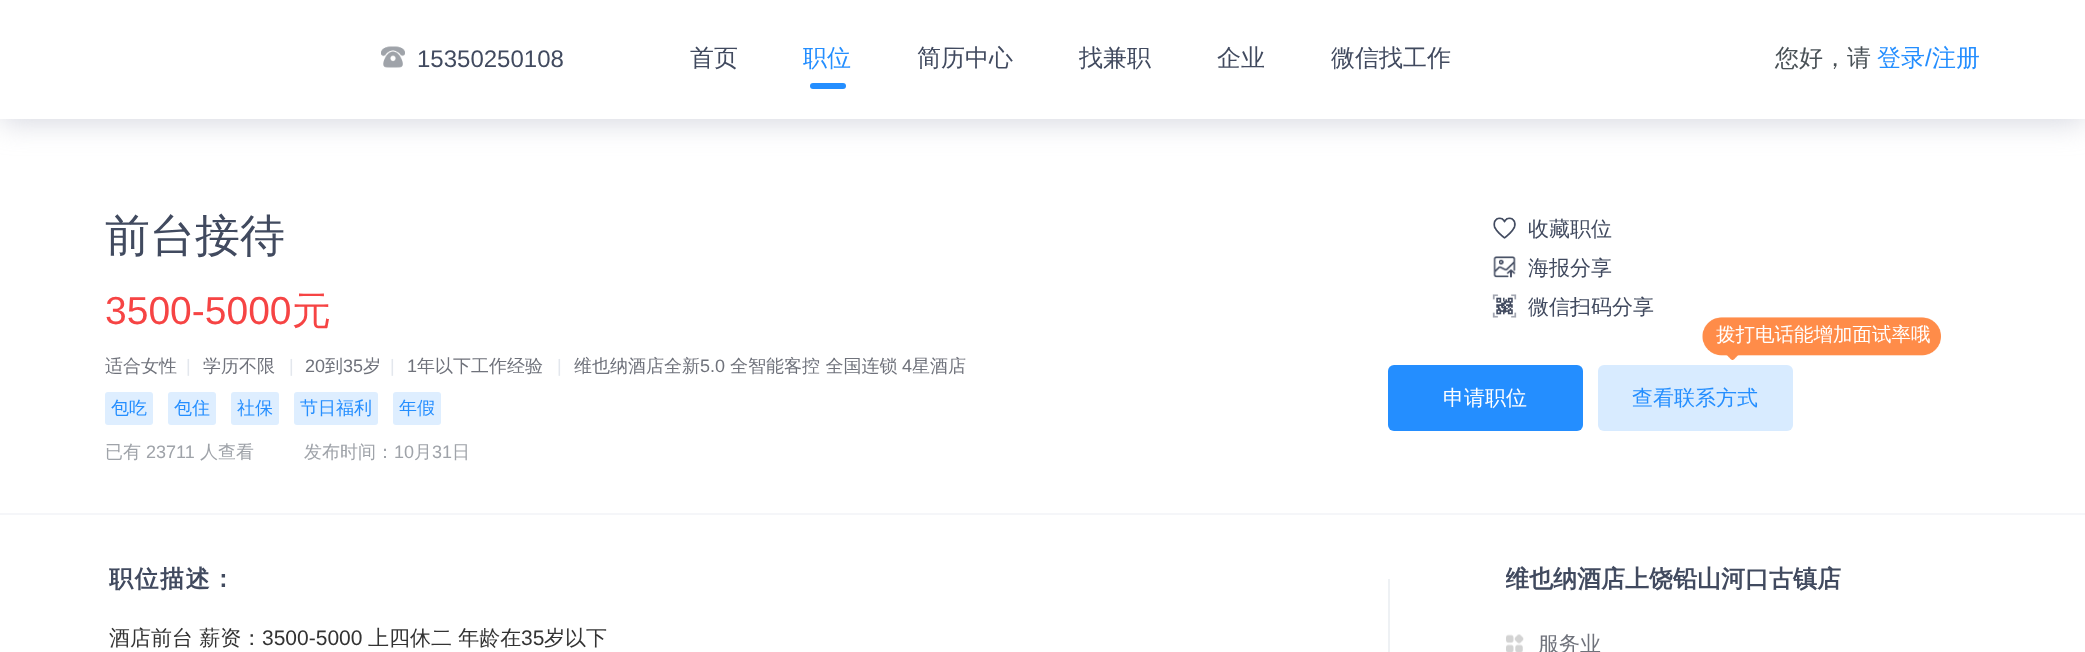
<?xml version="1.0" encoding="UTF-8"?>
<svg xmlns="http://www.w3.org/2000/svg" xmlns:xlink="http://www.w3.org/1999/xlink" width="2085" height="652">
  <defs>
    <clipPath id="clip1"><rect x="1506" y="563" width="366" height="34" /></clipPath>
  </defs>
  <rect width="100%" height="100%" fill="#ffffff" />
  <rect y="3" width="2085" height="119" fill="#aaadbf" fill-opacity="0.5" filter="blur(15px)" />
  <rect width="2085" height="119" fill="#ffffff" />
  <image x="381" y="46" width="24" height="22" xlink:href="image1.png" />
  <rect x="810" y="83" width="36" height="6" rx="3" fill="#248eff" />
  <rect y="513" width="2085" height="2" fill="#f5f6f9" />
  <rect x="105" y="392" width="48" height="33" rx="3" fill="#deeeff" />
  <rect x="168" y="392" width="48" height="33" rx="3" fill="#deeeff" />
  <rect x="231" y="392" width="48" height="33" rx="3" fill="#deeeff" />
  <rect x="294" y="392" width="84" height="33" rx="3" fill="#deeeff" />
  <rect x="393" y="392" width="48" height="33" rx="3" fill="#deeeff" />
  <image x="1493" y="217" width="23" height="22" xlink:href="image2.png" />
  <image x="1493" y="256" width="23" height="22" xlink:href="image3.png" />
  <image x="1492" y="294" width="25" height="24" xlink:href="image4.png" />
  <image x="1702" y="317" width="239" height="43" xlink:href="image5.png" />
  <rect x="1388" y="365" width="195" height="66" rx="6" fill="#248eff" />
  <rect x="1598" y="365" width="195" height="66" rx="6" fill="#d8ebff" />
  <rect x="1388" y="579" width="2" height="73" fill="#eef1f4" />
  <image x="1506" y="634" width="18" height="18" xlink:href="image6.png" />
  <text x="417" y="67" style="font-family: Liberation Sans; font-size: 24px; fill: #414a5f">15350250108</text>
  <text x="690" y="66" style="font-family: WenQuanYi Zen Hei; font-size: 24px; font-weight: 500; fill: #414a5f">首页</text>
  <text x="803" y="66" style="font-family: WenQuanYi Zen Hei; font-size: 24px; font-weight: 500; fill: #248eff">职位</text>
  <text x="917" y="66" style="font-family: WenQuanYi Zen Hei; font-size: 24px; font-weight: 500; fill: #414a5f">简历中心</text>
  <text x="1079" y="66" style="font-family: WenQuanYi Zen Hei; font-size: 24px; font-weight: 500; fill: #414a5f">找兼职</text>
  <text x="1217" y="66" style="font-family: WenQuanYi Zen Hei; font-size: 24px; font-weight: 500; fill: #414a5f">企业</text>
  <text x="1331" y="66" style="font-family: WenQuanYi Zen Hei; font-size: 24px; font-weight: 500; fill: #414a5f">微信找工作</text>
  <text x="1775" y="66" style="font-family: WenQuanYi Zen Hei; font-size: 24px; font-weight: 500; fill: #495156">您好，请</text>
  <text x="1877" y="66" style="font-family: WenQuanYi Zen Hei; font-size: 24px; font-weight: 500; fill: #248eff">登录</text>
  <text x="1925" y="66" style="font-family: Liberation Sans; font-size: 24px; fill: #248eff">/</text>
  <text x="1932" y="66" style="font-family: WenQuanYi Zen Hei; font-size: 24px; font-weight: 500; fill: #248eff">注册</text>
  <text x="105" y="251" style="font-family: WenQuanYi Zen Hei; font-size: 45px; font-weight: 500; fill: #414a5f">前台接待</text>
  <text x="105" y="324" style="font-family: Liberation Sans; font-size: 39px; fill: #f64444">3500-5000</text>
  <text x="292" y="324" style="font-family: WenQuanYi Zen Hei; font-size: 39px; font-weight: 500; fill: #f64444">元</text>
  <text x="105" y="372" style="font-family: WenQuanYi Zen Hei; font-size: 18px; font-weight: 500; fill: #6f727b">适合女性</text>
  <text x="186" y="372" style="font-family: Liberation Sans; font-size: 18px; fill: #e3e7ed">|</text>
  <text x="203" y="372" style="font-family: WenQuanYi Zen Hei; font-size: 18px; font-weight: 500; fill: #6f727b">学历不限</text>
  <text x="289" y="372" style="font-family: Liberation Sans; font-size: 18px; fill: #e3e7ed">|</text>
  <text x="305" y="372" style="font-family: Liberation Sans; font-size: 18px; fill: #6f727b">20</text>
  <text x="325" y="372" style="font-family: WenQuanYi Zen Hei; font-size: 18px; font-weight: 500; fill: #6f727b">到</text>
  <text x="343" y="372" style="font-family: Liberation Sans; font-size: 18px; fill: #6f727b">35</text>
  <text x="363" y="372" style="font-family: WenQuanYi Zen Hei; font-size: 18px; font-weight: 500; fill: #6f727b">岁</text>
  <text x="390" y="372" style="font-family: Liberation Sans; font-size: 18px; fill: #e3e7ed">|</text>
  <text x="407" y="372" style="font-family: Liberation Sans; font-size: 18px; fill: #6f727b">1</text>
  <text x="417" y="372" style="font-family: WenQuanYi Zen Hei; font-size: 18px; font-weight: 500; fill: #6f727b">年以下工作经验</text>
  <text x="557" y="372" style="font-family: Liberation Sans; font-size: 18px; fill: #e3e7ed">|</text>
  <text x="574" y="372" style="font-family: WenQuanYi Zen Hei; font-size: 18px; font-weight: 500; fill: #6f727b">维也纳酒店全新</text>
  <text x="700" y="372" style="font-family: Liberation Sans; font-size: 18px; fill: #6f727b">5.0</text>
  <text x="730" y="372" style="font-family: WenQuanYi Zen Hei; font-size: 18px; font-weight: 500; fill: #6f727b">全智能客控 全国连锁</text>
  <text x="902" y="372" style="font-family: Liberation Sans; font-size: 18px; fill: #6f727b">4</text>
  <text x="912" y="372" style="font-family: WenQuanYi Zen Hei; font-size: 18px; font-weight: 500; fill: #6f727b">星酒店</text>
  <text x="111" y="414" style="font-family: WenQuanYi Zen Hei; font-size: 18px; font-weight: 500; fill: #248eff">包吃</text>
  <text x="174" y="414" style="font-family: WenQuanYi Zen Hei; font-size: 18px; font-weight: 500; fill: #248eff">包住</text>
  <text x="237" y="414" style="font-family: WenQuanYi Zen Hei; font-size: 18px; font-weight: 500; fill: #248eff">社保</text>
  <text x="300" y="414" style="font-family: WenQuanYi Zen Hei; font-size: 18px; font-weight: 500; fill: #248eff">节日福利</text>
  <text x="399" y="414" style="font-family: WenQuanYi Zen Hei; font-size: 18px; font-weight: 500; fill: #248eff">年假</text>
  <text x="105" y="458" style="font-family: WenQuanYi Zen Hei; font-size: 18px; font-weight: 500; fill: #9fa3a9">已有</text>
  <text x="146" y="458" style="font-family: Liberation Sans; font-size: 18px; fill: #9fa3a9">23711</text>
  <text x="200" y="458" style="font-family: WenQuanYi Zen Hei; font-size: 18px; font-weight: 500; fill: #9fa3a9">人查看</text>
  <text x="304" y="458" style="font-family: WenQuanYi Zen Hei; font-size: 18px; font-weight: 500; fill: #9fa3a9">发布时间：</text>
  <text x="394" y="458" style="font-family: Liberation Sans; font-size: 18px; fill: #9fa3a9">10</text>
  <text x="414" y="458" style="font-family: WenQuanYi Zen Hei; font-size: 18px; font-weight: 500; fill: #9fa3a9">月</text>
  <text x="432" y="458" style="font-family: Liberation Sans; font-size: 18px; fill: #9fa3a9">31</text>
  <text x="452" y="458" style="font-family: WenQuanYi Zen Hei; font-size: 18px; font-weight: 500; fill: #9fa3a9">日</text>
  <text x="1528" y="236" style="font-family: WenQuanYi Zen Hei; font-size: 21px; font-weight: 500; fill: #414a5f">收藏职位</text>
  <text x="1528" y="275" style="font-family: WenQuanYi Zen Hei; font-size: 21px; font-weight: 500; fill: #414a5f">海报分享</text>
  <text x="1528" y="314" style="font-family: WenQuanYi Zen Hei; font-size: 21px; font-weight: 500; fill: #414a5f">微信扫码分享</text>
  <text x="1716" y="341" style="font-family: WenQuanYi Zen Hei; font-size: 19.5px; font-weight: 500; fill: #ffffff">拨打电话能增加面试率哦</text>
  <text x="1443" y="405" style="font-family: WenQuanYi Zen Hei; font-size: 21px; font-weight: 500; fill: #ffffff">申请职位</text>
  <text x="1632" y="405" style="font-family: WenQuanYi Zen Hei; font-size: 21px; font-weight: 500; fill: #248eff">查看联系方式</text>
  <text x="109" y="587" style="font-family: WenQuanYi Zen Hei; font-size: 24px; font-weight: bold; letter-spacing: 1.5px; fill: #414a5f">职位描述：</text>
  <text x="109" y="645" style="font-family: WenQuanYi Zen Hei; font-size: 21px; font-weight: 500; fill: #333333">酒店前台 薪资：</text>
  <text x="262" y="645" style="font-family: Liberation Sans; font-size: 21px; fill: #333333">3500-5000</text>
  <text x="368" y="645" style="font-family: WenQuanYi Zen Hei; font-size: 21px; font-weight: 500; fill: #333333">上四休二 年龄在</text>
  <text x="521" y="645" style="font-family: Liberation Sans; font-size: 21px; fill: #333333">35</text>
  <text x="544" y="645" style="font-family: WenQuanYi Zen Hei; font-size: 21px; font-weight: 500; fill: #333333">岁以下</text>
  <g clip-path="url(#clip1)">
    <text x="1505" y="587" style="font-family: WenQuanYi Zen Hei; font-size: 24px; font-weight: bold; fill: #414a5f">维也纳酒店上饶铅山河口古镇店</text>
  </g>
  <text x="1538" y="651" style="font-family: WenQuanYi Zen Hei; font-size: 21px; font-weight: 500; fill: #6f727b">服务业</text>
</svg>
